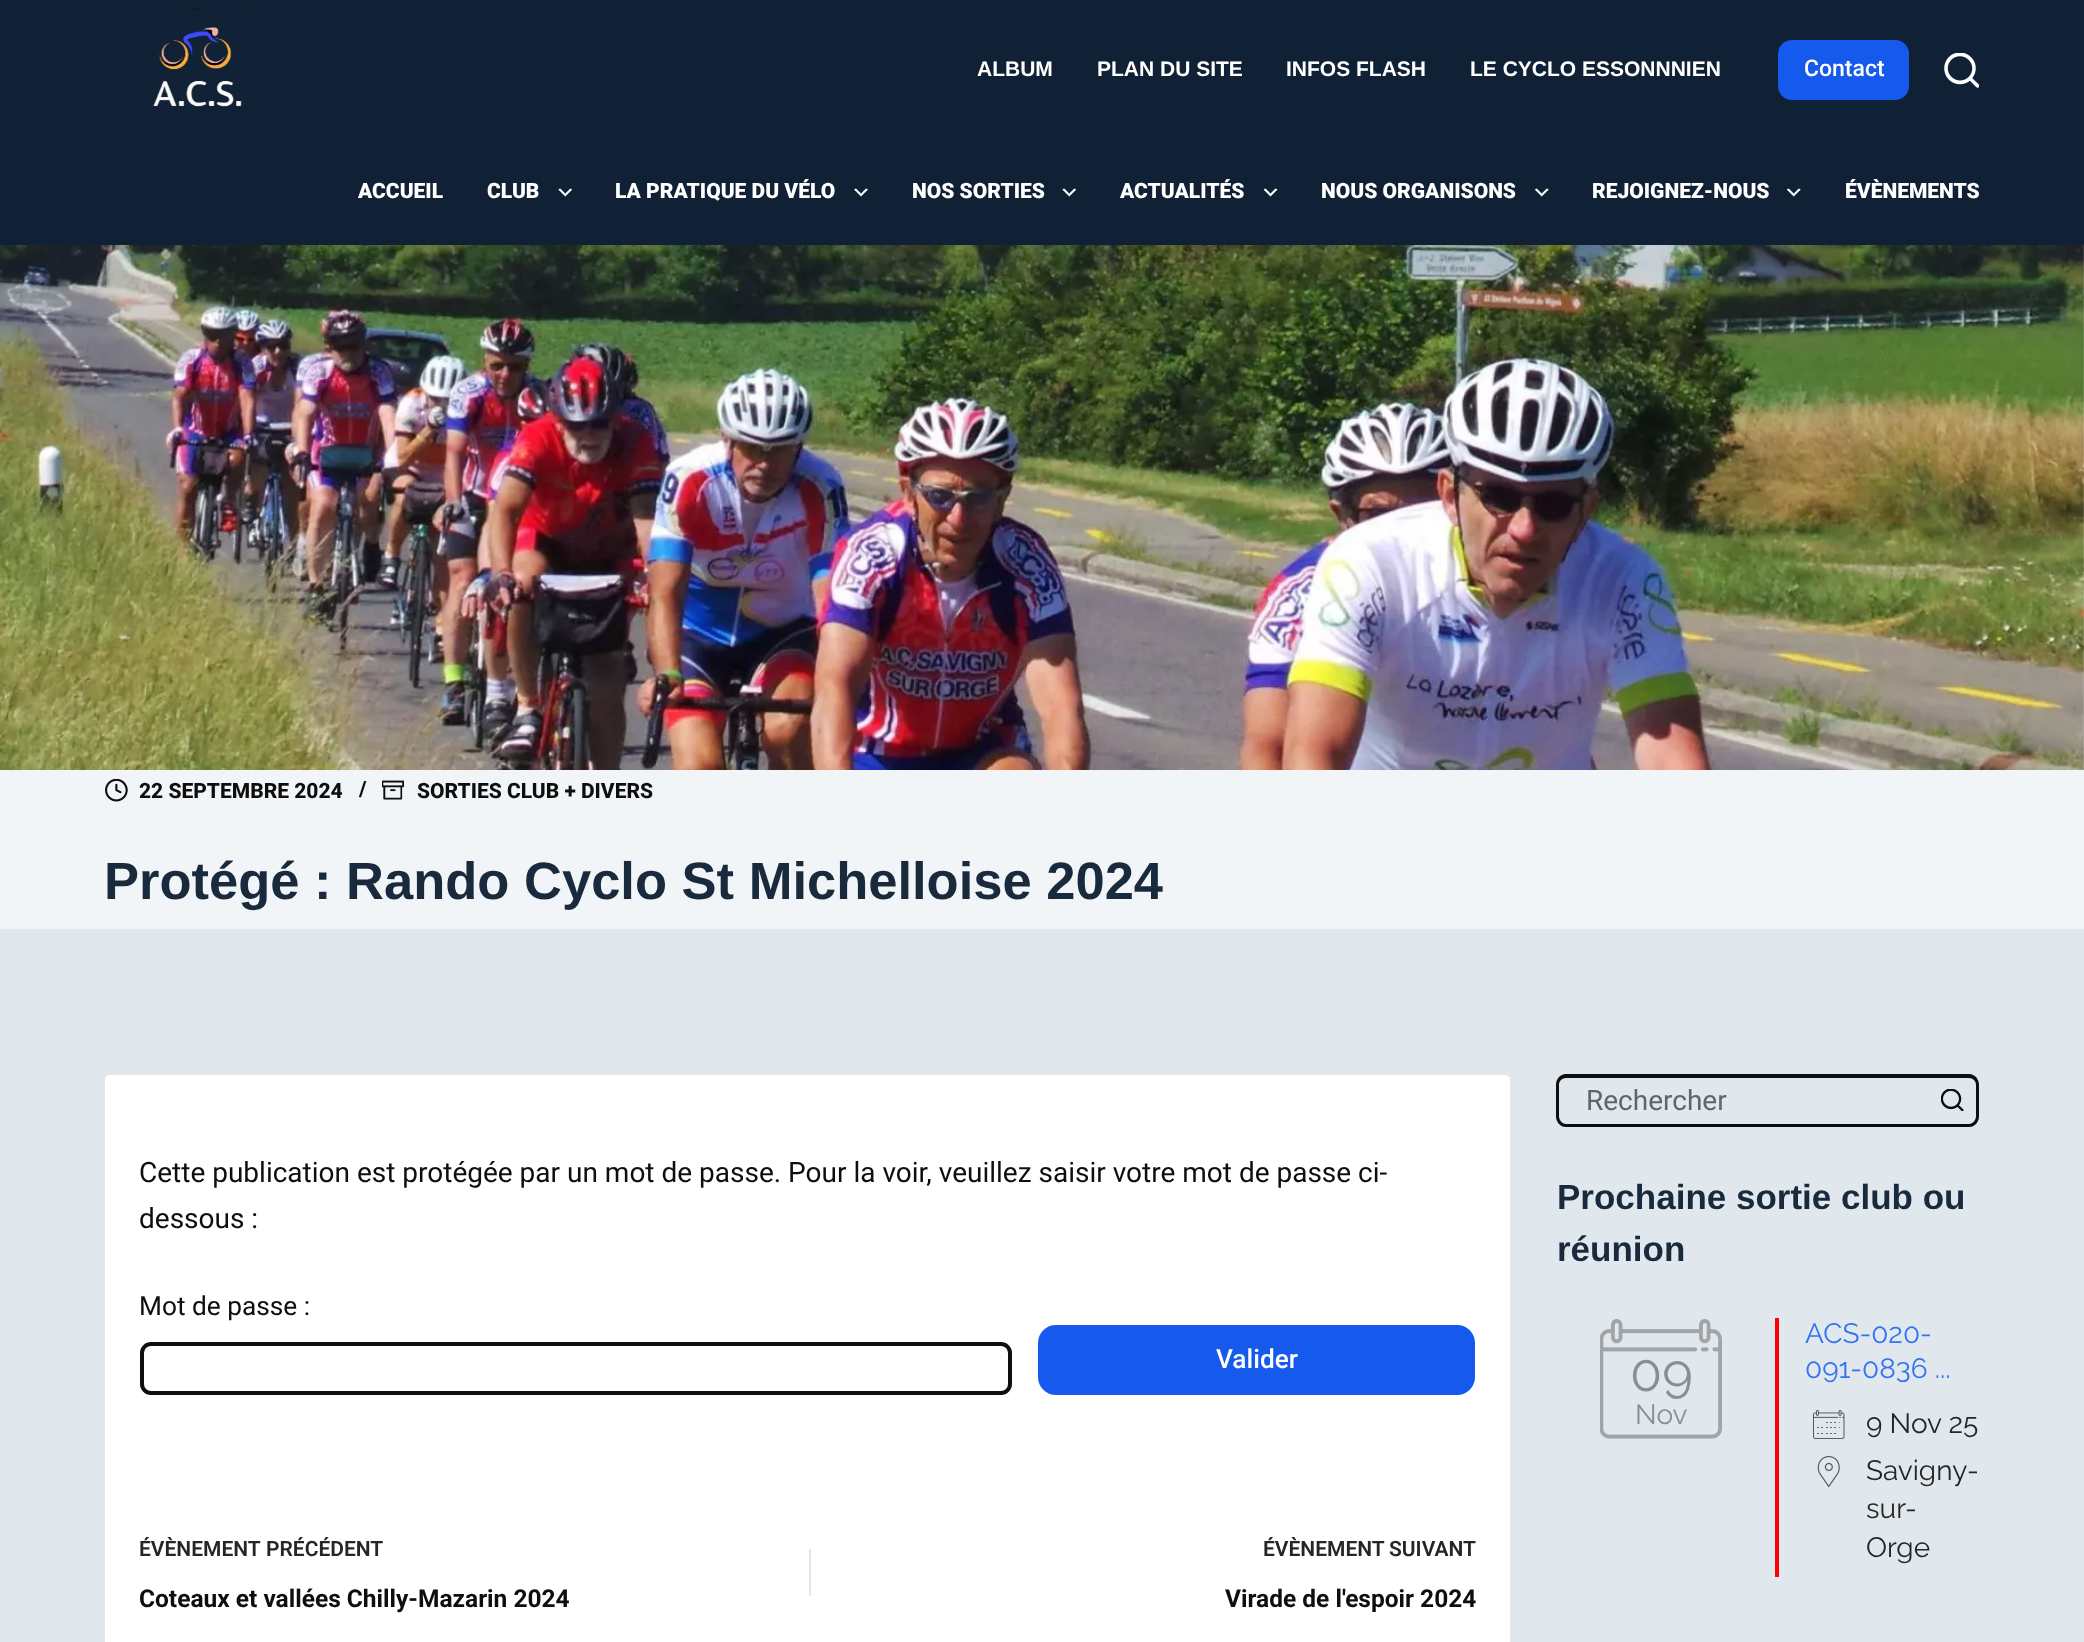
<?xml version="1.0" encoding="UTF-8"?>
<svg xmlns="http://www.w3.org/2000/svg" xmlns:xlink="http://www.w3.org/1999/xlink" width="2084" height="1642">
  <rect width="100%" height="100%" fill="#e1e8ed" />
  <rect width="2084" height="245" fill="#102136" />
  <image x="153" y="8" width="102" height="99" xlink:href="image1.png" />
  <rect x="1778" y="40" width="131" height="60" rx="14" fill="#1559ed" />
  <image x="1944" y="53" width="35" height="35" xlink:href="image2.png" />
  <image x="558" y="188" width="14" height="9" xlink:href="image3.png" />
  <image x="854" y="188" width="14" height="9" xlink:href="image4.png" />
  <image x="1062" y="188" width="14" height="9" xlink:href="image3.png" />
  <image x="1264" y="188" width="14" height="9" xlink:href="image5.png" />
  <image x="1535" y="188" width="14" height="9" xlink:href="image6.png" />
  <image x="1787" y="188" width="14" height="9" xlink:href="image6.png" />
  <image x="0" y="245" width="2084" height="525" xlink:href="image7.png" />
  <rect y="770" width="2084" height="159" fill="#f2f5f7" />
  <image x="105" y="779" width="23" height="23" xlink:href="image8.png" />
  <image x="382" y="780" width="22" height="20" xlink:href="image9.png" />
  <rect x="105" y="1075" width="1405" height="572" rx="5" fill="#ffffff" />
  <rect x="142" y="1344" width="868" height="49" rx="9" fill="none" stroke="#0e0e0e" stroke-width="4" />
  <rect x="1038" y="1325" width="437" height="70" rx="18" fill="#1559ed" />
  <rect x="809" y="1549" width="2" height="47" fill="#e1e8ed" />
  <path d="M 1566 1074 h 361 v 53 h -361 c -6 0 -10 -5 -10 -11 v -31 c 0 -6 4 -11 10 -11 z m 0 4 h 361 v 46 h -361 c -4 0 -7 -4 -7 -8 v -31 c 0 -4 3 -7 7 -7 z" fill="#0e0e0e" fill-rule="evenodd" />
  <path d="M 1927 1074 h 42 c 6 0 10 5 10 11 v 31 c 0 6 -4 11 -10 11 h -42 z m 0 4 h 42 c 4 0 7 3 7 7 v 31 c 0 4 -3 8 -7 8 h -42 z" fill="#0e0e0e" fill-rule="evenodd" />
  <image x="1941" y="1089" width="23" height="22" xlink:href="image10.png" />
  <image x="1600" y="1319" width="122" height="120" xlink:href="image11.png" />
  <rect x="1775" y="1318" width="4" height="259" fill="#ff0000" />
  <image x="1813" y="1410" width="32" height="29" xlink:href="image12.png" />
  <image x="1817" y="1456" width="23" height="32" xlink:href="image13.png" />
  <text x="977" y="76" style="font-family: Liberation Sans; font-size: 21px; font-weight: bold; fill: #ffffff">ALBUM</text>
  <text x="1097" y="76" style="font-family: Liberation Sans; font-size: 21px; font-weight: bold; fill: #ffffff">PLAN DU SITE</text>
  <text x="1286" y="76" style="font-family: Liberation Sans; font-size: 21px; font-weight: bold; fill: #ffffff">INFOS FLASH</text>
  <text x="1470" y="76" style="font-family: Liberation Sans; font-size: 21px; font-weight: bold; fill: #ffffff">LE CYCLO ESSONNNIEN</text>
  <text x="1804" y="76" style="font-family: Roboto; font-size: 23px; font-weight: 500; fill: #ffffff">Contact</text>
  <text x="358" y="198" style="font-family: Roboto; font-size: 21px; font-weight: 900; fill: #ffffff">ACCUEIL</text>
  <text x="487" y="198" style="font-family: Roboto; font-size: 21px; font-weight: 900; fill: #ffffff">CLUB</text>
  <text x="615" y="198" style="font-family: Roboto; font-size: 21px; font-weight: 900; fill: #ffffff">LA PRATIQUE DU VÉLO</text>
  <text x="912" y="198" style="font-family: Roboto; font-size: 21px; font-weight: 900; fill: #ffffff">NOS SORTIES</text>
  <text x="1120" y="198" style="font-family: Roboto; font-size: 21px; font-weight: 900; fill: #ffffff">ACTUALITÉS</text>
  <text x="1321" y="198" style="font-family: Roboto; font-size: 21px; font-weight: 900; fill: #ffffff">NOUS ORGANISONS</text>
  <text x="1592" y="198" style="font-family: Roboto; font-size: 21px; font-weight: 900; fill: #ffffff">REJOIGNEZ-NOUS</text>
  <text x="1845" y="198" style="font-family: Roboto; font-size: 21px; font-weight: 900; fill: #ffffff">ÉVÈNEMENTS</text>
  <text x="139" y="798" style="font-family: Roboto; font-size: 21px; font-weight: 800; fill: #0e0e0e">22 SEPTEMBRE 2024</text>
  <text x="359" y="796" style="font-family: Roboto; font-size: 21px; font-weight: 800; fill: #0e0e0e">/</text>
  <text x="417" y="798" style="font-family: Roboto; font-size: 21px; font-weight: 800; fill: #0e0e0e">SORTIES CLUB + DIVERS</text>
  <text x="104" y="899" style="font-family: Liberation Sans; font-size: 52.5px; font-weight: bold; fill: #192a3d">Protégé : Rando Cyclo St Michelloise 2024</text>
  <text x="139" y="1182" style="font-family: Roboto; font-size: 28px; fill: #0e0e0e">Cette publication est protégée par un mot de passe. Pour la voir, veuillez saisir votre mot de passe ci-</text>
  <text x="139" y="1228" style="font-family: Roboto; font-size: 28px; fill: #0e0e0e">dessous :</text>
  <text x="139" y="1315" style="font-family: Roboto; font-size: 26.25px; fill: #0e0e0e">Mot de passe :</text>
  <text x="1216" y="1368" style="font-family: Roboto; font-size: 26.25px; font-weight: 500; fill: #ffffff">Valider</text>
  <text x="139" y="1556" style="font-family: Roboto; font-size: 21px; font-weight: 600; fill: #262626">ÉVÈNEMENT</text>
  <text x="266" y="1556" style="font-family: Roboto; font-size: 21px; font-weight: 600; fill: #262626">PRÉCÉDENT</text>
  <text x="139" y="1607" style="font-family: Roboto; font-size: 24.5px; font-weight: bold; fill: #0e0e0e">Coteaux et vallées Chilly-Mazarin 2024</text>
  <text x="1263" y="1556" style="font-family: Roboto; font-size: 21px; font-weight: 600; fill: #262626">ÉVÈNEMENT</text>
  <text x="1389" y="1556" style="font-family: Roboto; font-size: 21px; font-weight: 600; fill: #262626">SUIVANT</text>
  <text x="1225" y="1607" style="font-family: Roboto; font-size: 24.5px; font-weight: bold; fill: #0e0e0e">Virade de l'espoir 2024</text>
  <text x="1586" y="1110" style="font-family: Roboto; font-size: 28px; fill: #626567">Rechercher</text>
  <text x="1557" y="1209" style="font-family: Liberation Sans; font-size: 35px; font-weight: bold; fill: #192a3d">Prochaine sortie club ou</text>
  <text x="1557" y="1261" style="font-family: Liberation Sans; font-size: 35px; font-weight: bold; fill: #192a3d">réunion</text>
  <text x="1630" y="1391" style="font-family: Raleway; font-size: 52.5px; fill: #8b8e91">09</text>
  <text x="1635" y="1424" style="font-family: Raleway; font-size: 28px; fill: #8b8e91">Nov</text>
  <text x="1805" y="1343" style="font-family: Raleway; font-size: 28px; fill: #3372f0">ACS-020-</text>
  <text x="1805" y="1378" style="font-family: Raleway; font-size: 28px; fill: #3372f0">091-0836 ...</text>
  <text x="1866" y="1433" style="font-family: Raleway; font-size: 28px; fill: #262626">9 Nov 25</text>
  <text x="1866" y="1480" style="font-family: Raleway; font-size: 28px; fill: #262626">Savigny-</text>
  <text x="1866" y="1518" style="font-family: Raleway; font-size: 28px; fill: #262626">sur-</text>
  <text x="1866" y="1557" style="font-family: Raleway; font-size: 28px; fill: #262626">Orge</text>
</svg>
